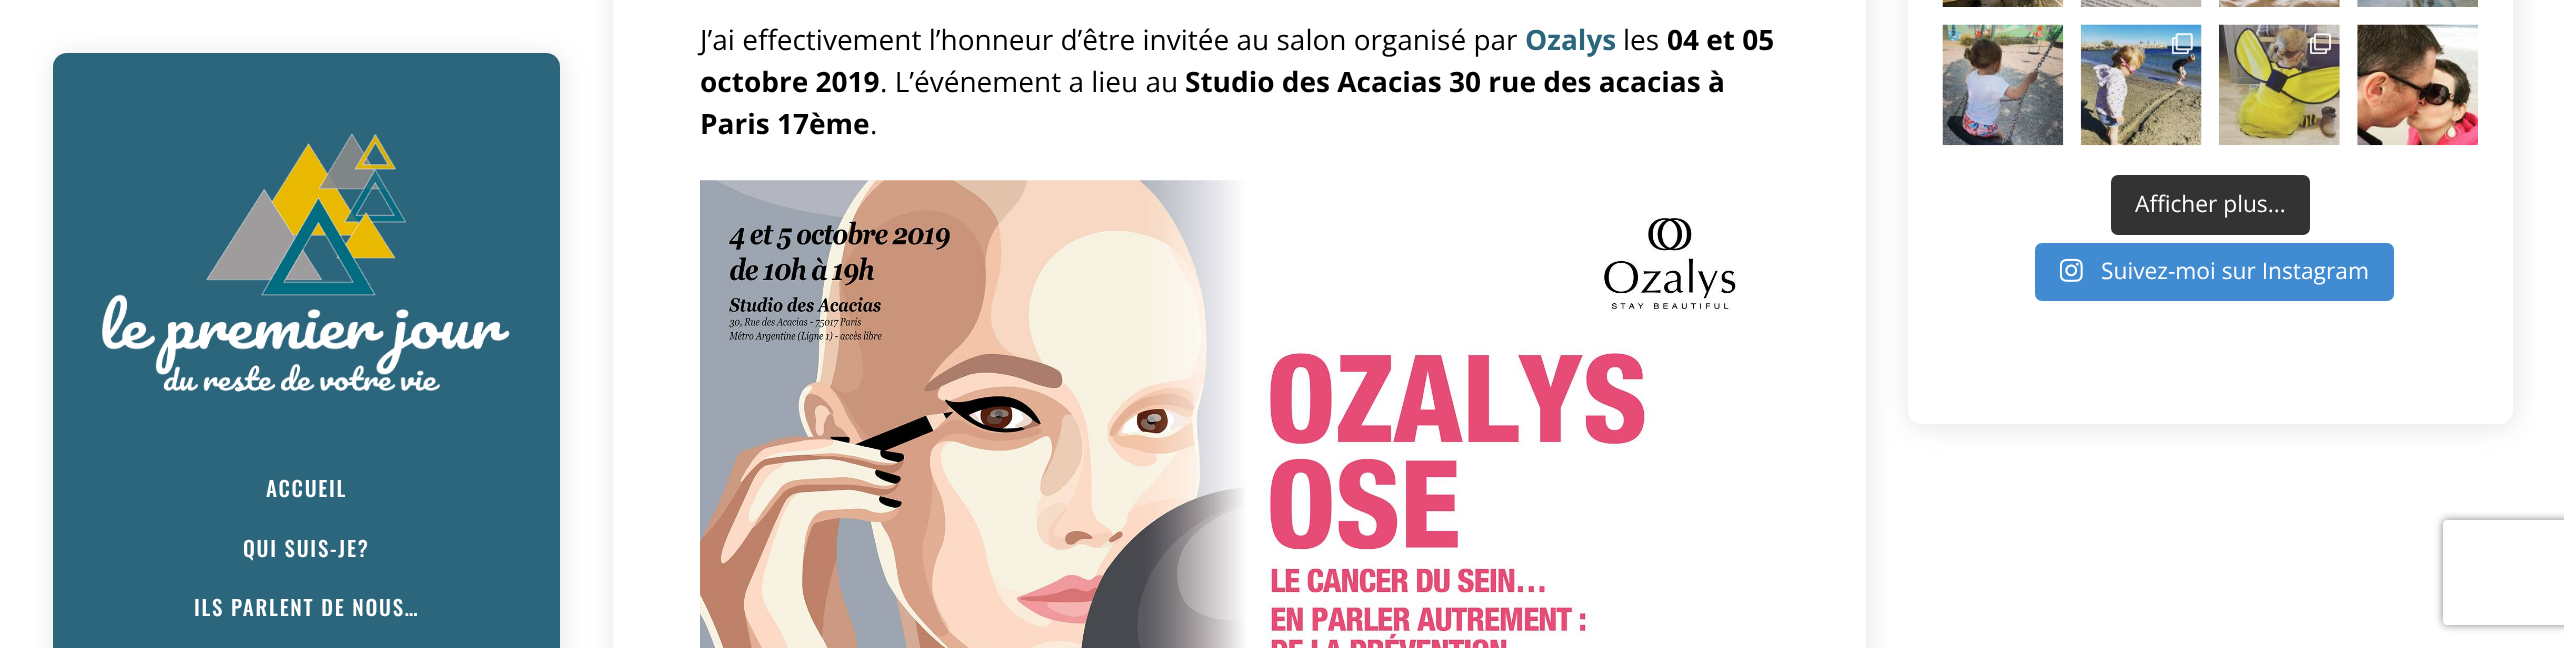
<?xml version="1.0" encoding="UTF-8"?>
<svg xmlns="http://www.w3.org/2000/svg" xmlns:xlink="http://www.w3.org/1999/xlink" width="2564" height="648">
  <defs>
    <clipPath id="clip1"><path d="M 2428 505 h 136 v 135 h -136 z m 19 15 h 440 c 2 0 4 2 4 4 v 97 c 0 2 -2 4 -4 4 h -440 c -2 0 -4 -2 -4 -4 v -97 c 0 -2 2 -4 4 -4 z" clip-rule="evenodd" /></clipPath>
  </defs>
  <rect width="100%" height="100%" fill="#ffffff" />
  <rect x="614" y="-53" width="1253" height="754" rx="14" fill="#e5e5e5" filter="blur(13px)" />
  <rect x="613" width="1253" height="648" fill="#ffffff" />
  <image x="700" y="180" width="1036" height="468" xlink:href="image1.png" />
  <rect x="1909" y="-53" width="606" height="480" rx="14" fill="#e5e5e5" filter="blur(13px)" />
  <rect x="1908" y="-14" width="605" height="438" rx="14" fill="#ffffff" />
  <image x="1942" y="0" width="122" height="7" xlink:href="image2.png" />
  <image x="2080" y="0" width="122" height="7" xlink:href="image3.png" />
  <image x="2219" y="0" width="121" height="7" xlink:href="image4.png" />
  <image x="2357" y="0" width="121" height="7" xlink:href="image5.png" />
  <image x="1942" y="24" width="122" height="122" xlink:href="image6.png" />
  <image x="2080" y="24" width="122" height="122" xlink:href="image7.png" />
  <image x="2172" y="33" width="21" height="21" xlink:href="image8.png" />
  <image x="2219" y="24" width="121" height="122" xlink:href="image9.png" />
  <image x="2310" y="33" width="21" height="21" xlink:href="image10.png" />
  <image x="2357" y="24" width="121" height="122" xlink:href="image11.png" />
  <rect x="2111" y="175" width="199" height="60" rx="7" fill="#333333" />
  <rect x="2035" y="243" width="359" height="58" rx="7" fill="#408bd1" />
  <image x="2060" y="258" width="23" height="24" xlink:href="image12.png" />
  <rect x="54" y="56" width="508" height="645" rx="14" fill="#e5e5e5" filter="blur(13px)" />
  <rect x="53" y="53" width="507" height="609" rx="14" fill="#2c667c" />
  <image x="102" y="133" width="408" height="259" xlink:href="image13.png" />
  <g clip-path="url(#clip1)">
    <rect x="2443" y="520" width="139" height="105" rx="4" fill="#808080" filter="blur(4.5px)" />
  </g>
  <text x="700" y="50" style="font-family: Open Sans; font-size: 28px; fill: #000000">J’ai effectivement l’honneur d’être invitée au salon organisé par</text>
  <text x="1525" y="50" style="font-family: Open Sans; font-size: 28px; font-weight: bold; fill: #2c667c">Ozalys</text>
  <text x="1623" y="50" style="font-family: Open Sans; font-size: 28px; fill: #000000">les</text>
  <text x="1667" y="50" style="font-family: Open Sans; font-size: 28px; font-weight: bold; fill: #000000">04 et 05</text>
  <text x="700" y="92" style="font-family: Open Sans; font-size: 28px; font-weight: bold; fill: #000000">octobre 2019</text>
  <text x="880" y="92" style="font-family: Open Sans; font-size: 28px; fill: #000000">. L’événement a lieu au</text>
  <text x="1185" y="92" style="font-family: Open Sans; font-size: 28px; font-weight: bold; fill: #000000">Studio des Acacias 30 rue des acacias à</text>
  <text x="700" y="134" style="font-family: Open Sans; font-size: 28px; font-weight: bold; fill: #000000">Paris 17ème</text>
  <text x="870" y="134" style="font-family: Open Sans; font-size: 28px; fill: #000000">.</text>
  <text x="2135" y="212" style="font-family: Open Sans; font-size: 22.75px; fill: #ffffff">Afficher plus...</text>
  <text x="2101" y="279" style="font-family: Open Sans; font-size: 22.75px; fill: #ffffff">Suivez-moi sur Instagram</text>
  <text x="266" y="497" style="font-family: Oswald; font-size: 21px; font-weight: 500; letter-spacing: 1.75px; fill: #ffffff">ACCUEIL</text>
  <text x="243" y="557" style="font-family: Oswald; font-size: 21px; font-weight: 500; letter-spacing: 1.75px; fill: #ffffff">QUI SUIS-JE?</text>
  <text x="194" y="616" style="font-family: Oswald; font-size: 21px; font-weight: 500; letter-spacing: 1.75px; fill: #ffffff">ILS PARLENT DE NOUS…</text>
</svg>
